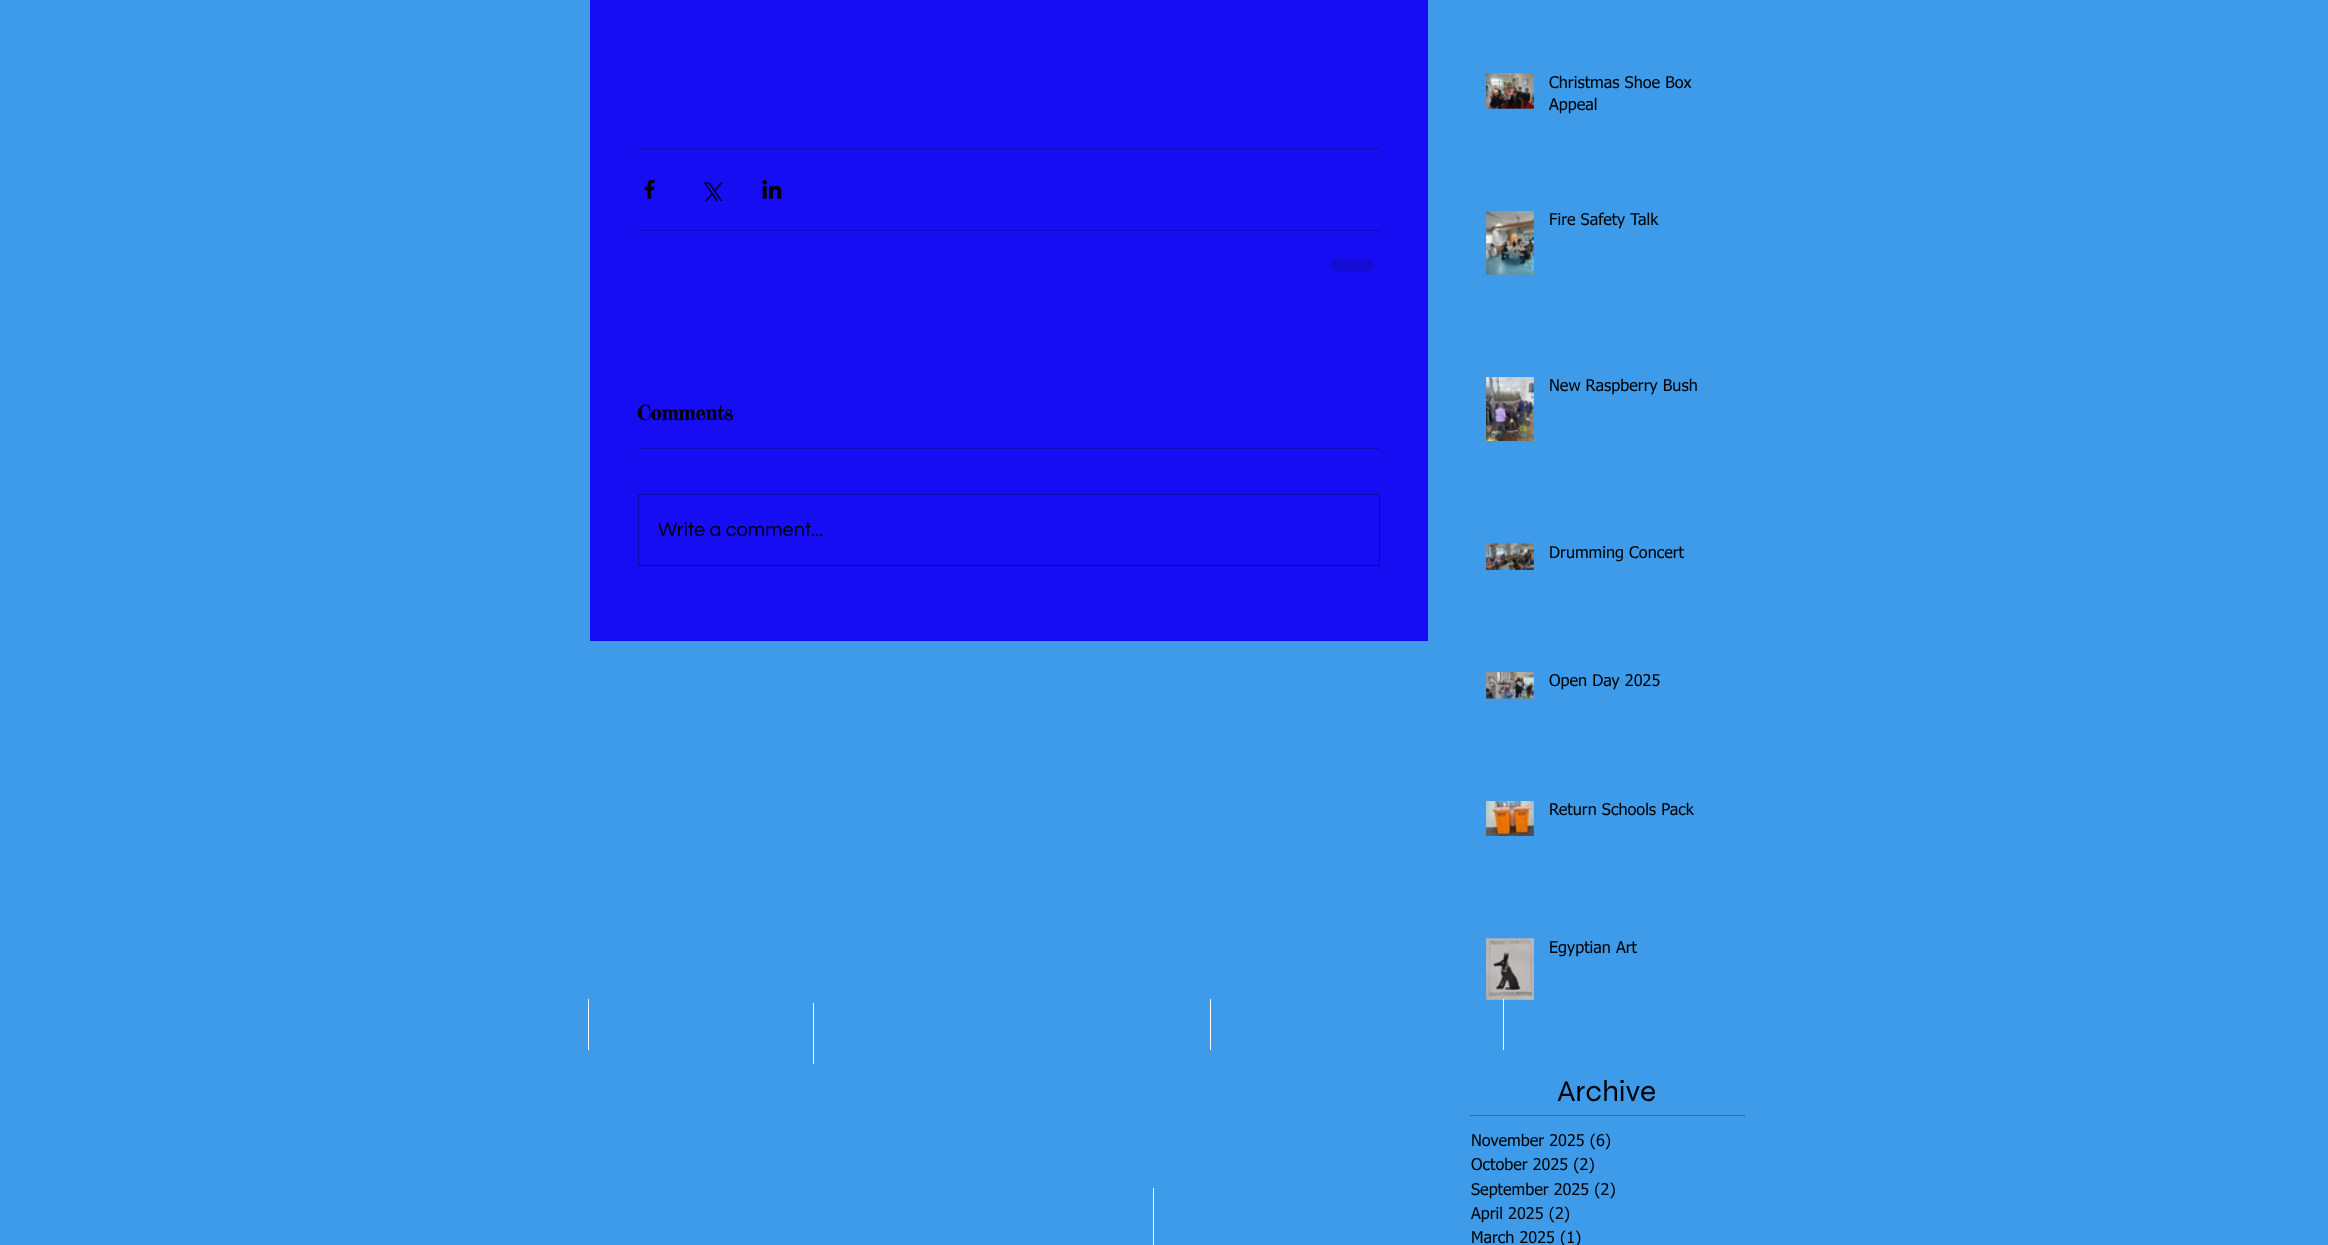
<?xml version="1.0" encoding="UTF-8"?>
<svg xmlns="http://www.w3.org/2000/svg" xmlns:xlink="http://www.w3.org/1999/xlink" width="2328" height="1245">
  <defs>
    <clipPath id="clip1"><rect x="659" y="515" width="700" height="30" /></clipPath>
  </defs>
  <rect width="100%" height="100%" fill="#3d9be9" />
  <rect x="590" width="838" height="641" fill="#170df2" />
  <rect x="638" y="148" width="742" height="1" fill="#120ac2" />
  <image x="644" y="180" width="11" height="19" xlink:href="image1.png" />
  <image x="703" y="182" width="20" height="19" xlink:href="image2.png" />
  <image x="762" y="180" width="20" height="19" xlink:href="image3.png" />
  <rect x="638" y="230" width="742" height="1" fill="#120ac2" />
  <rect x="1330" y="259" width="44" height="12" rx="6" fill="#140bd5" />
  <rect x="638" y="448" width="742" height="1" fill="#120ac2" />
  <rect x="638.5" y="494.5" width="741" height="71" fill="none" stroke="#1009a9" />
  <image x="1486" y="73" width="48" height="36" xlink:href="image4.png" />
  <image x="1486" y="73" width="48" height="36" xlink:href="image5.png" />
  <image x="1486" y="211" width="48" height="64" xlink:href="image6.png" />
  <image x="1486" y="211" width="48" height="64" xlink:href="image7.png" />
  <image x="1486" y="377" width="48" height="64" xlink:href="image8.png" />
  <image x="1486" y="377" width="48" height="64" xlink:href="image9.png" />
  <image x="1486" y="543" width="48" height="27" xlink:href="image10.png" />
  <image x="1486" y="543" width="48" height="27" xlink:href="image11.png" />
  <image x="1486" y="672" width="48" height="27" xlink:href="image12.png" />
  <image x="1486" y="672" width="48" height="27" xlink:href="image13.png" />
  <image x="1486" y="801" width="48" height="35" xlink:href="image14.png" />
  <image x="1486" y="801" width="48" height="35" xlink:href="image15.png" />
  <image x="1486" y="938" width="48" height="62" xlink:href="image16.png" />
  <image x="1486" y="938" width="48" height="62" xlink:href="image17.png" />
  <rect x="1470" y="1115" width="275" height="1" fill="#2b6da3" />
  <rect x="588" y="999" width="1" height="51" fill="#ffffff" />
  <rect x="813" y="1003" width="1" height="61" fill="#ffffff" />
  <rect x="1210" y="999" width="1" height="51" fill="#ffffff" />
  <rect x="1503" y="999" width="1" height="51" fill="#ffffff" />
  <rect x="1153" y="1188" width="1" height="57" fill="#ffffff" />
  <text x="637" y="420" style="font-family: Fredericka the Great; font-size: 20px; font-weight: bold; fill: #000000">Comments</text>
  <g clip-path="url(#clip1)">
    <text x="658" y="536" style="font-family: Questrial; font-size: 20px; fill: #000000">Write a comment...</text>
  </g>
  <text x="1549" y="88" style="font-family: tahoma; font-size: 16.25px; fill: #000000">Christmas Shoe Box</text>
  <text x="1549" y="110" style="font-family: tahoma; font-size: 16.25px; fill: #000000">Appeal</text>
  <text x="1549" y="225" style="font-family: tahoma; font-size: 16.25px; fill: #000000">Fire Safety Talk</text>
  <text x="1549" y="391" style="font-family: tahoma; font-size: 16.25px; fill: #000000">New Raspberry Bush</text>
  <text x="1549" y="558" style="font-family: tahoma; font-size: 16.25px; fill: #000000">Drumming Concert</text>
  <text x="1549" y="686" style="font-family: tahoma; font-size: 16.25px; fill: #000000">Open Day 2025</text>
  <text x="1549" y="815" style="font-family: tahoma; font-size: 16.25px; fill: #000000">Return Schools Pack</text>
  <text x="1549" y="953" style="font-family: tahoma; font-size: 16.25px; fill: #000000">Egyptian Art</text>
  <text x="1557" y="1101" style="font-family: Syne; font-size: 30px; fill: #000000">Archive</text>
  <text x="1471" y="1146" style="font-family: tahoma; font-size: 16.25px; fill: #000000">November 2025 (6)</text>
  <text x="1471" y="1170" style="font-family: tahoma; font-size: 16.25px; fill: #000000">October 2025 (2)</text>
  <text x="1471" y="1195" style="font-family: tahoma; font-size: 16.25px; fill: #000000">September 2025 (2)</text>
  <text x="1471" y="1219" style="font-family: tahoma; font-size: 16.25px; fill: #000000">April 2025 (2)</text>
  <text x="1471" y="1243" style="font-family: tahoma; font-size: 16.25px; fill: #000000">March 2025 (1)</text>
</svg>
